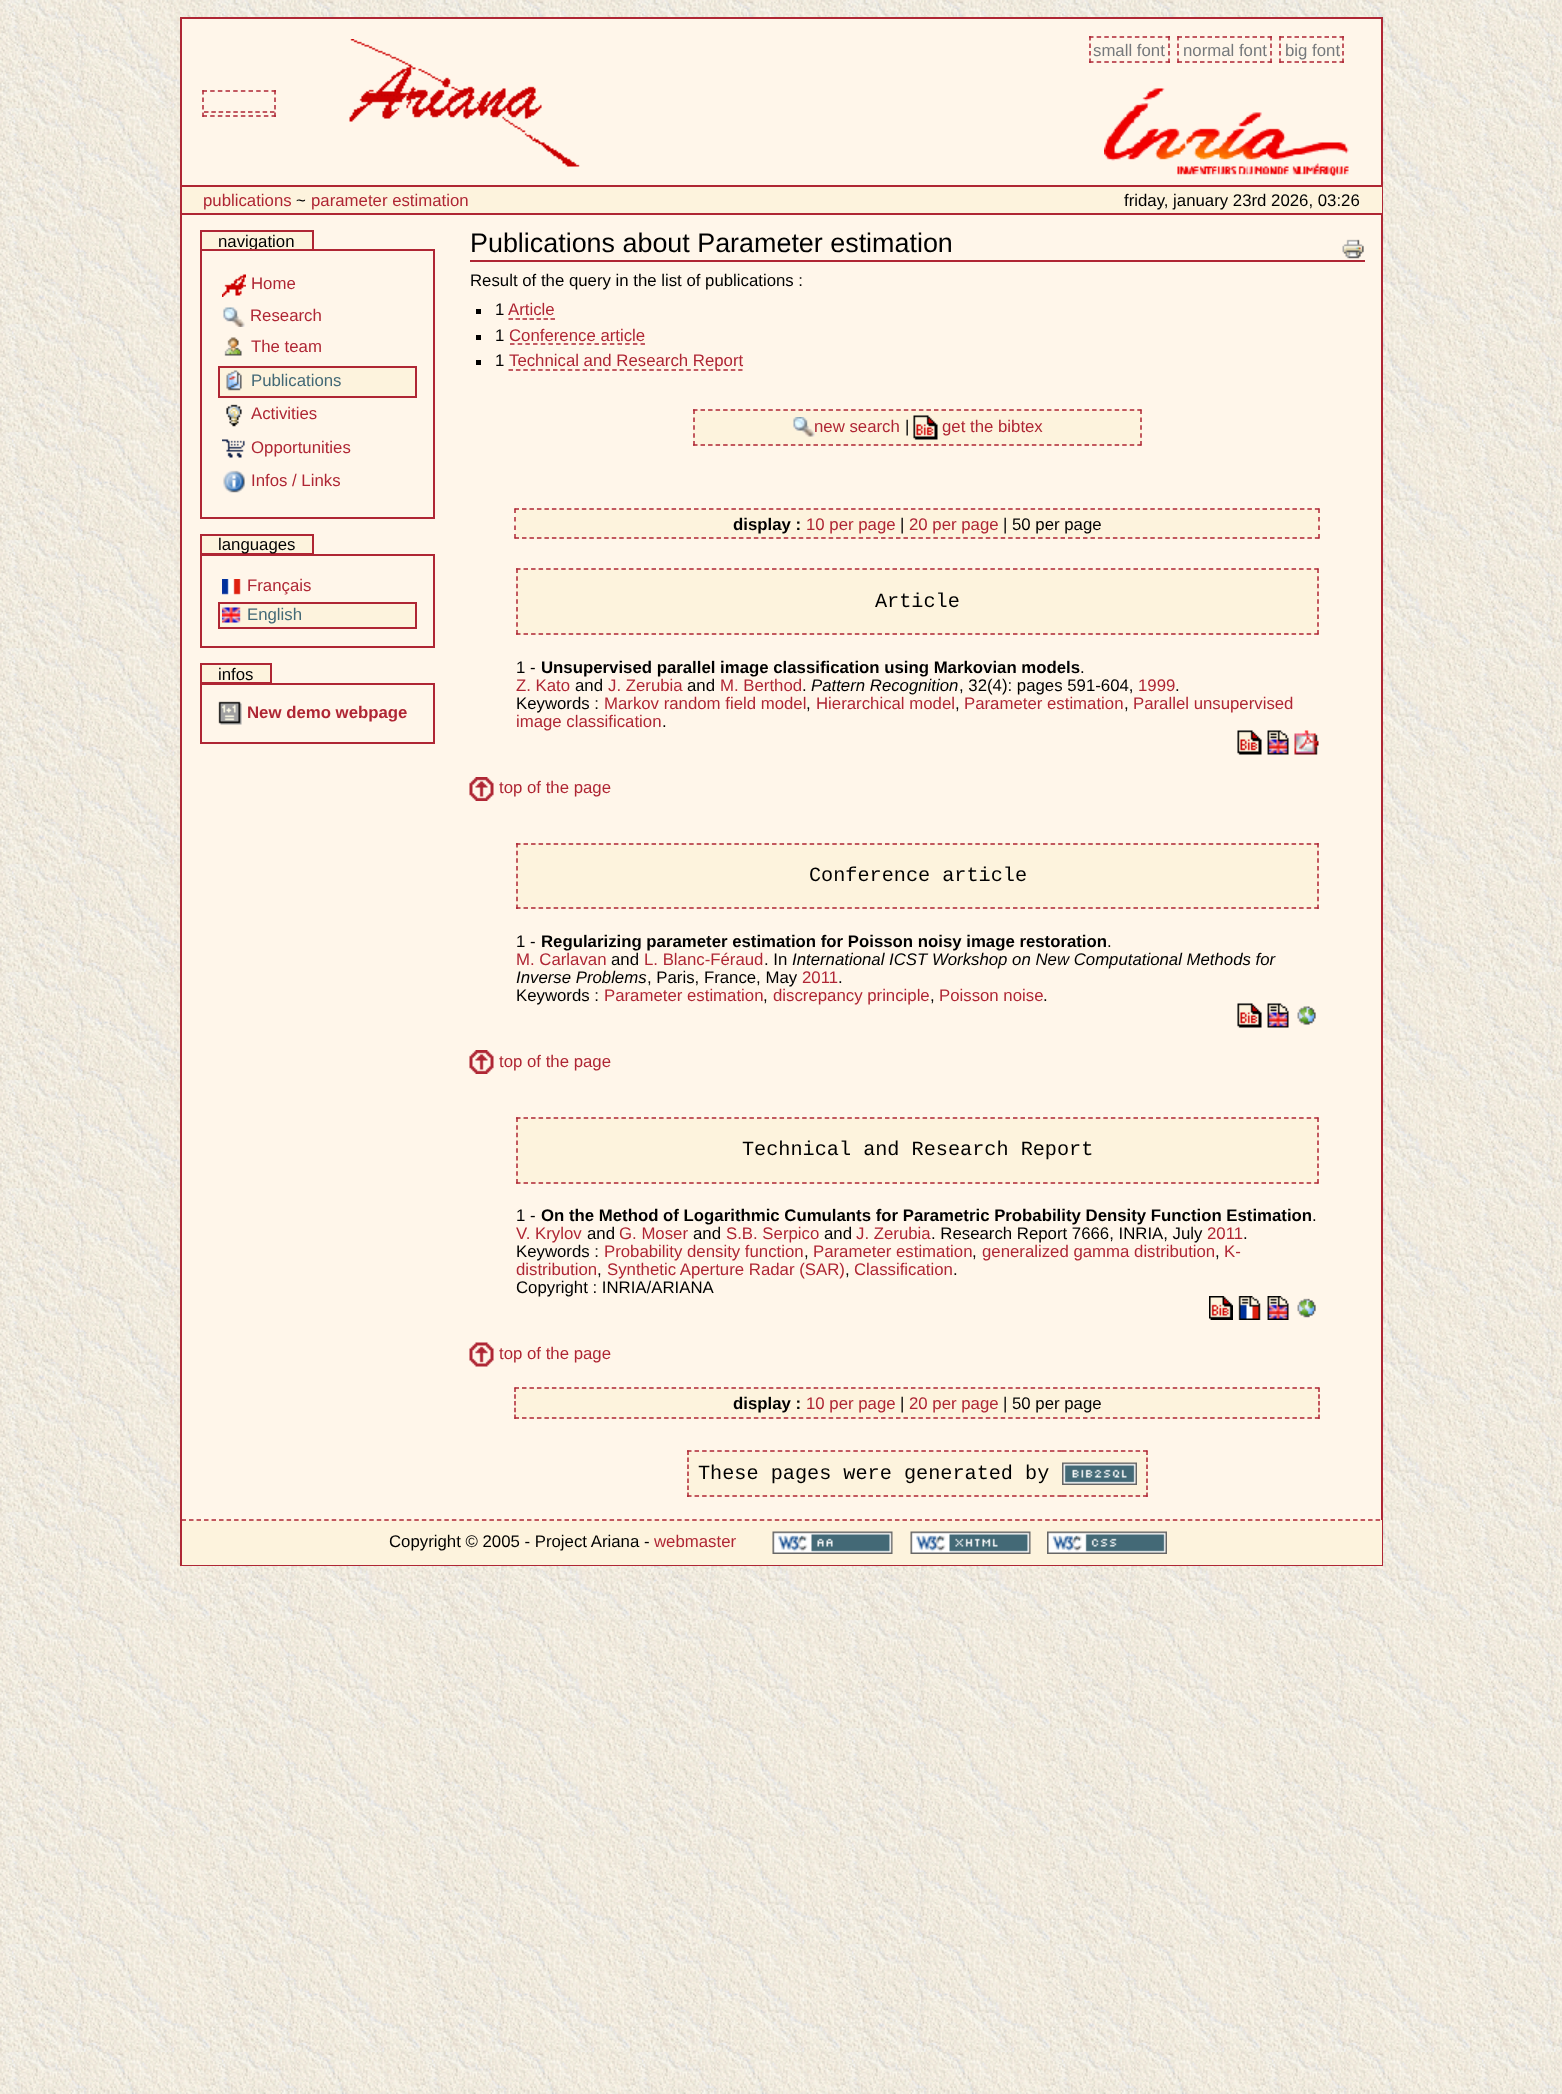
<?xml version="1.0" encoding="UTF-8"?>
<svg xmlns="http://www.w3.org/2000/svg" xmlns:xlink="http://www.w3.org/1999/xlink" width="1562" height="2094">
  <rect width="100%" height="100%" fill="#ffffff" />
  <image x="0" y="0" width="1562" height="2094" xlink:href="image1.png" />
  <rect x="182" y="19" width="1199" height="1501" fill="#fff6ea" />
  <rect x="181" y="18" width="1201" height="1547" fill="none" stroke="#af2634" stroke-width="2" />
  <path d="M 202.5 91 h 73.5" fill="none" stroke="#af2634" stroke-width="1.5" stroke-dasharray="4.5 3.17" />
  <path d="M 275 90 v 27" fill="none" stroke="#af2634" stroke-width="1.5" stroke-dasharray="4.5 3" />
  <path d="M 202.5 116 h 73.5" fill="none" stroke="#af2634" stroke-width="1.5" stroke-dasharray="4.5 3.17" />
  <path d="M 203 90 v 27" fill="none" stroke="#af2634" stroke-width="1.5" stroke-dasharray="4.5 3" />
  <path d="M 204 112 h 70.5" fill="none" stroke="#af2634" stroke-width="1.5" stroke-dasharray="4.5 2.83" />
  <image x="349" y="39" width="231" height="128" xlink:href="image2.png" />
  <path d="M 1089 37 h 81" fill="none" stroke="#af2634" stroke-width="1.5" stroke-dasharray="4.5 3.15" />
  <path d="M 1169 36 v 27" fill="none" stroke="#af2634" stroke-width="1.5" stroke-dasharray="4.5 3" />
  <path d="M 1089 62 h 81" fill="none" stroke="#af2634" stroke-width="1.5" stroke-dasharray="4.5 3.15" />
  <path d="M 1090 36 v 27" fill="none" stroke="#af2634" stroke-width="1.5" stroke-dasharray="4.5 3" />
  <path d="M 1177.5 37 h 94.5" fill="none" stroke="#af2634" stroke-width="1.5" stroke-dasharray="4.5 3" />
  <path d="M 1271 36 v 27" fill="none" stroke="#af2634" stroke-width="1.5" stroke-dasharray="4.5 3" />
  <path d="M 1177.5 62 h 94.5" fill="none" stroke="#af2634" stroke-width="1.5" stroke-dasharray="4.5 3" />
  <path d="M 1178 36 v 27" fill="none" stroke="#af2634" stroke-width="1.5" stroke-dasharray="4.5 3" />
  <path d="M 1279.5 37 h 64.5" fill="none" stroke="#af2634" stroke-width="1.5" stroke-dasharray="4.5 3" />
  <path d="M 1343 36 v 27" fill="none" stroke="#af2634" stroke-width="1.5" stroke-dasharray="4.5 3" />
  <path d="M 1279.5 62 h 64.5" fill="none" stroke="#af2634" stroke-width="1.5" stroke-dasharray="4.5 3" />
  <path d="M 1280 36 v 27" fill="none" stroke="#af2634" stroke-width="1.5" stroke-dasharray="4.5 3" />
  <image x="1104" y="88" width="245" height="89" xlink:href="image3.png" />
  <rect x="182" y="187" width="1200" height="26" fill="#fdf3dd" />
  <rect x="182" y="185" width="1200" height="2" fill="#af2634" />
  <rect x="182" y="213" width="1200" height="2" fill="#af2634" />
  <rect x="201" y="231" width="112" height="19" fill="#fdf3dd" stroke="#af2634" stroke-width="2" />
  <rect x="201" y="535" width="112" height="19" fill="#fdf3dd" stroke="#af2634" stroke-width="2" />
  <rect x="201" y="555" width="233" height="92" fill="none" stroke="#af2634" stroke-width="2" />
  <image x="222" y="579" width="19" height="16" xlink:href="image11.png" />
  <rect x="219" y="603" width="197" height="25" fill="#fdf3dd" stroke="#af2634" stroke-width="2" />
  <image x="222" y="607" width="19" height="16" xlink:href="image12.png" />
  <rect x="201" y="664" width="70" height="19" fill="#fdf3dd" stroke="#af2634" stroke-width="2" />
  <rect x="201" y="684" width="233" height="59" fill="none" stroke="#af2634" stroke-width="2" />
  <image x="218" y="701" width="24" height="24" xlink:href="image13.png" />
  <rect x="470" y="260" width="895" height="2" fill="#af2634" />
  <image x="1342" y="239" width="22" height="20" xlink:href="image14.png" />
  <rect x="476" y="309" width="5" height="5" fill="#000000" />
  <path d="M 508.5 319 h 46.5" fill="none" stroke="#af2634" stroke-width="1.5" stroke-dasharray="4.5 2.5" />
  <rect x="476" y="335" width="5" height="5" fill="#000000" />
  <path d="M 510 344 h 135" fill="none" stroke="#af2634" stroke-width="1.5" stroke-dasharray="4.5 3.18" />
  <rect x="476" y="360" width="5" height="5" fill="#000000" />
  <path d="M 508.5 370 h 234" fill="none" stroke="#af2634" stroke-width="1.5" stroke-dasharray="4.5 2.91" />
  <rect x="693" y="410" width="449" height="36" fill="#fdf3dd" />
  <path d="M 693 410 h 448.5" fill="none" stroke="#af2634" stroke-width="1.5" stroke-dasharray="4.5 3.03" />
  <path d="M 1141 409.5 v 36" fill="none" stroke="#af2634" stroke-width="1.5" stroke-dasharray="4.5 3.38" />
  <path d="M 693 445 h 448.5" fill="none" stroke="#af2634" stroke-width="1.5" stroke-dasharray="4.5 3.03" />
  <path d="M 694 409.5 v 36" fill="none" stroke="#af2634" stroke-width="1.5" stroke-dasharray="4.5 3.38" />
  <image x="793" y="417" width="22" height="20" xlink:href="image15.png" />
  <image x="913" y="415" width="25" height="25" xlink:href="image16.png" />
  <rect x="515" y="509" width="805" height="30" fill="#fdf3dd" />
  <path d="M 514.5 509 h 805.5" fill="none" stroke="#af2634" stroke-width="1.5" stroke-dasharray="4.5 2.98" />
  <path d="M 1319 508.5 v 30" fill="none" stroke="#af2634" stroke-width="1.5" stroke-dasharray="4.5 4" />
  <path d="M 514.5 538 h 805.5" fill="none" stroke="#af2634" stroke-width="1.5" stroke-dasharray="4.5 2.98" />
  <path d="M 515 508.5 v 30" fill="none" stroke="#af2634" stroke-width="1.5" stroke-dasharray="4.5 4" />
  <rect x="516" y="569" width="803" height="66" fill="#fdf3dd" />
  <path d="M 516 569 h 802.5" fill="none" stroke="#af2634" stroke-width="1.5" stroke-dasharray="4.5 3.03" />
  <path d="M 1318 568.5 v 66" fill="none" stroke="#af2634" stroke-width="1.5" stroke-dasharray="4.5 3.18" />
  <path d="M 516 634 h 802.5" fill="none" stroke="#af2634" stroke-width="1.5" stroke-dasharray="4.5 3.03" />
  <path d="M 517 568.5 v 66" fill="none" stroke="#af2634" stroke-width="1.5" stroke-dasharray="4.5 3.18" />
  <image x="1237" y="730" width="25" height="25" xlink:href="image17.png" />
  <image x="1267" y="730" width="22" height="25" xlink:href="image18.png" />
  <image x="1294" y="730" width="25" height="25" xlink:href="image19.png" />
  <image x="469" y="777" width="25" height="24" xlink:href="image20.png" />
  <rect x="516" y="843" width="803" height="66" fill="#fdf3dd" />
  <path d="M 516 844 h 802.5" fill="none" stroke="#af2634" stroke-width="1.5" stroke-dasharray="4.5 3.03" />
  <path d="M 1318 843 v 66" fill="none" stroke="#af2634" stroke-width="1.5" stroke-dasharray="4.5 3.18" />
  <path d="M 516 908 h 802.5" fill="none" stroke="#af2634" stroke-width="1.5" stroke-dasharray="4.5 3.03" />
  <path d="M 517 843 v 66" fill="none" stroke="#af2634" stroke-width="1.5" stroke-dasharray="4.5 3.18" />
  <image x="1237" y="1003" width="25" height="25" xlink:href="image17.png" />
  <image x="1267" y="1003" width="22" height="25" xlink:href="image18.png" />
  <image x="1297" y="1006" width="19" height="19" xlink:href="image21.png" />
  <image x="469" y="1050" width="25" height="24" xlink:href="image20.png" />
  <rect x="516" y="1118" width="803" height="66" fill="#fdf3dd" />
  <path d="M 516 1118 h 802.5" fill="none" stroke="#af2634" stroke-width="1.5" stroke-dasharray="4.5 3.03" />
  <path d="M 1318 1117.5 v 66" fill="none" stroke="#af2634" stroke-width="1.5" stroke-dasharray="4.5 3.18" />
  <path d="M 516 1183 h 802.5" fill="none" stroke="#af2634" stroke-width="1.5" stroke-dasharray="4.5 3.03" />
  <path d="M 517 1117.5 v 66" fill="none" stroke="#af2634" stroke-width="1.5" stroke-dasharray="4.5 3.18" />
  <image x="1209" y="1296" width="24" height="24" xlink:href="image22.png" />
  <image x="1238" y="1296" width="23" height="24" xlink:href="image23.png" />
  <image x="1267" y="1296" width="22" height="24" xlink:href="image24.png" />
  <image x="1297" y="1298" width="19" height="20" xlink:href="image25.png" />
  <image x="469" y="1342" width="25" height="25" xlink:href="image26.png" />
  <rect x="515" y="1388" width="805" height="31" fill="#fdf3dd" />
  <path d="M 514.5 1388 h 805.5" fill="none" stroke="#af2634" stroke-width="1.5" stroke-dasharray="4.5 2.98" />
  <path d="M 1319 1387.5 v 31.5" fill="none" stroke="#af2634" stroke-width="1.5" stroke-dasharray="4.5 2.25" />
  <path d="M 514.5 1418 h 805.5" fill="none" stroke="#af2634" stroke-width="1.5" stroke-dasharray="4.5 2.98" />
  <path d="M 515 1387.5 v 31.5" fill="none" stroke="#af2634" stroke-width="1.5" stroke-dasharray="4.5 2.25" />
  <rect x="687" y="1451" width="461" height="46" fill="#fdf3dd" />
  <path d="M 687 1451 h 375" fill="none" stroke="#af2634" stroke-width="1.5" stroke-dasharray="4.5 3.06" />
  <path d="M 687 1496 h 375" fill="none" stroke="#af2634" stroke-width="1.5" stroke-dasharray="4.5 3.06" />
  <path d="M 688 1450.5 v 46.5" fill="none" stroke="#af2634" stroke-width="1.5" stroke-dasharray="4.5 2.5" />
  <path d="M 1062 1451 h 85.5" fill="none" stroke="#af2634" stroke-width="1.5" stroke-dasharray="4.5 2.86" />
  <path d="M 1147 1450.5 v 46.5" fill="none" stroke="#af2634" stroke-width="1.5" stroke-dasharray="4.5 2.5" />
  <path d="M 1062 1496 h 85.5" fill="none" stroke="#af2634" stroke-width="1.5" stroke-dasharray="4.5 2.86" />
  <image x="1062" y="1462" width="75" height="23" xlink:href="image27.png" />
  <rect x="182" y="1520" width="1200" height="45" fill="#fdf3dd" />
  <path d="M 181.5 1520 h 1200" fill="none" stroke="#af2634" stroke-width="1.5" stroke-dasharray="4.5 3.01" />
  <image x="772" y="1531" width="121" height="23" xlink:href="image28.png" />
  <image x="910" y="1531" width="121" height="23" xlink:href="image29.png" />
  <image x="1047" y="1531" width="120" height="23" xlink:href="image30.png" />
  <text x="1093" y="56" style="font-family: Liberation Sans; font-size: 16.8px; fill: #76797c">small font</text>
  <text x="1183" y="56" style="font-family: Liberation Sans; font-size: 16.8px; fill: #76797c">normal font</text>
  <text x="1285" y="56" style="font-family: Liberation Sans; font-size: 16.8px; fill: #76797c">big font</text>
  <text x="203" y="206" style="font-family: Liberation Sans; font-size: 16.8px; fill: #af2634">publications</text>
  <text x="296" y="206" style="font-family: Liberation Sans; font-size: 16.8px; fill: #000000">~</text>
  <text x="311" y="206" style="font-family: Liberation Sans; font-size: 16.8px; fill: #af2634">parameter estimation</text>
  <text x="1124" y="206" style="font-family: Liberation Sans; font-size: 16.8px; fill: #000000">friday, january 23rd 2026, 03:26</text>
  <text x="218" y="247" style="font-family: Liberation Sans; font-size: 16.8px; fill: #000000">navigation</text>
  <rect x="201" y="250" width="233" height="268" fill="none" stroke="#af2634" stroke-width="2" />
  <image x="222" y="274" width="24" height="23" xlink:href="image4.png" />
  <text x="251" y="289" style="font-family: Liberation Sans; font-size: 16.8px; fill: #af2634">Home</text>
  <image x="223" y="307" width="22" height="20" xlink:href="image5.png" />
  <text x="250" y="321" style="font-family: Liberation Sans; font-size: 16.8px; fill: #af2634">Research</text>
  <image x="224" y="337" width="18" height="19" xlink:href="image6.png" />
  <text x="251" y="352" style="font-family: Liberation Sans; font-size: 16.8px; fill: #af2634">The team</text>
  <rect x="219" y="367" width="197" height="30" fill="#fdf3dd" stroke="#af2634" stroke-width="2" />
  <image x="226" y="370" width="16" height="21" xlink:href="image7.png" />
  <text x="251" y="386" style="font-family: Liberation Sans; font-size: 16.8px; fill: #436976">Publications</text>
  <image x="226" y="404" width="16" height="23" xlink:href="image8.png" />
  <text x="251" y="419" style="font-family: Liberation Sans; font-size: 16.8px; fill: #af2634">Activities</text>
  <image x="222" y="439" width="23" height="19" xlink:href="image9.png" />
  <text x="251" y="453" style="font-family: Liberation Sans; font-size: 16.8px; fill: #af2634">Opportunities</text>
  <image x="223" y="470" width="22" height="23" xlink:href="image10.png" />
  <text x="251" y="486" style="font-family: Liberation Sans; font-size: 16.8px; fill: #af2634">Infos / Links</text>
  <text x="218" y="550" style="font-family: Liberation Sans; font-size: 16.8px; fill: #000000">languages</text>
  <text x="247" y="591" style="font-family: Liberation Sans; font-size: 16.8px; fill: #af2634">Français</text>
  <text x="247" y="620" style="font-family: Liberation Sans; font-size: 16.8px; fill: #436976">English</text>
  <text x="218" y="680" style="font-family: Liberation Sans; font-size: 16.8px; fill: #000000">infos</text>
  <text x="247" y="718" style="font-family: Liberation Sans; font-size: 16.8px; font-weight: bold; fill: #af2634">New demo webpage</text>
  <text x="470" y="252" style="font-family: Liberation Sans; font-size: 26.9px; fill: #000000">Publications about Parameter estimation</text>
  <text x="470" y="286" style="font-family: Liberation Sans; font-size: 16.8px; fill: #000000">Result of the query in the list of publications :</text>
  <text x="495" y="315" style="font-family: Liberation Sans; font-size: 16.8px; fill: #000000">1</text>
  <text x="508" y="315" style="font-family: Liberation Sans; font-size: 16.8px; fill: #af2634">Article</text>
  <text x="495" y="341" style="font-family: Liberation Sans; font-size: 16.8px; fill: #000000">1</text>
  <text x="509" y="341" style="font-family: Liberation Sans; font-size: 16.8px; fill: #af2634">Conference article</text>
  <text x="495" y="366" style="font-family: Liberation Sans; font-size: 16.8px; fill: #000000">1</text>
  <text x="509" y="366" style="font-family: Liberation Sans; font-size: 16.8px; fill: #af2634">Technical and Research Report</text>
  <text x="814" y="432" style="font-family: Liberation Sans; font-size: 16.8px; fill: #af2634">new search</text>
  <text x="905" y="432" style="font-family: Liberation Sans; font-size: 16.8px; fill: #000000">|</text>
  <text x="942" y="432" style="font-family: Liberation Sans; font-size: 16.8px; fill: #af2634">get the bibtex</text>
  <text x="733" y="530" style="font-family: Liberation Sans; font-size: 16.8px; font-weight: bold; fill: #000000">display :</text>
  <text x="806" y="530" style="font-family: Liberation Sans; font-size: 16.8px; fill: #af2634">10 per page</text>
  <text x="900" y="530" style="font-family: Liberation Sans; font-size: 16.8px; fill: #000000">|</text>
  <text x="909" y="530" style="font-family: Liberation Sans; font-size: 16.8px; fill: #af2634">20 per page</text>
  <text x="1003" y="530" style="font-family: Liberation Sans; font-size: 16.8px; fill: #000000">| 50 per page</text>
  <text x="875" y="607" style="font-family: Liberation Mono; font-size: 20.2px; fill: #000000">Article</text>
  <text x="516" y="673" style="font-family: Liberation Sans; font-size: 16.8px; fill: #000000">1 -</text>
  <text x="541" y="673" style="font-family: Liberation Sans; font-size: 16.8px; font-weight: bold; fill: #000000">Unsupervised parallel image classification using Markovian models</text>
  <text x="1080" y="673" style="font-family: Liberation Sans; font-size: 16.8px; fill: #000000">.</text>
  <text x="516" y="691" style="font-family: Liberation Sans; font-size: 16.8px; fill: #af2634">Z. Kato</text>
  <text x="575" y="691" style="font-family: Liberation Sans; font-size: 16.8px; fill: #000000">and</text>
  <text x="608" y="691" style="font-family: Liberation Sans; font-size: 16.8px; fill: #af2634">J. Zerubia</text>
  <text x="687" y="691" style="font-family: Liberation Sans; font-size: 16.8px; fill: #000000">and</text>
  <text x="720" y="691" style="font-family: Liberation Sans; font-size: 16.8px; fill: #af2634">M. Berthod</text>
  <text x="802" y="691" style="font-family: Liberation Sans; font-size: 16.8px; fill: #000000">.</text>
  <text x="811" y="691" style="font-family: Liberation Sans; font-size: 16.8px; font-style: italic; fill: #000000">Pattern Recognition</text>
  <text x="959" y="691" style="font-family: Liberation Sans; font-size: 16.8px; fill: #000000">, 32(4): pages 591-604,</text>
  <text x="1138" y="691" style="font-family: Liberation Sans; font-size: 16.8px; fill: #af2634">1999</text>
  <text x="1175" y="691" style="font-family: Liberation Sans; font-size: 16.8px; fill: #000000">.</text>
  <text x="516" y="709" style="font-family: Liberation Sans; font-size: 16.8px; fill: #000000">Keywords :</text>
  <text x="604" y="709" style="font-family: Liberation Sans; font-size: 16.8px; fill: #af2634">Markov random field model</text>
  <text x="806" y="709" style="font-family: Liberation Sans; font-size: 16.8px; fill: #000000">,</text>
  <text x="816" y="709" style="font-family: Liberation Sans; font-size: 16.8px; fill: #af2634">Hierarchical model</text>
  <text x="955" y="709" style="font-family: Liberation Sans; font-size: 16.8px; fill: #000000">,</text>
  <text x="964" y="709" style="font-family: Liberation Sans; font-size: 16.8px; fill: #af2634">Parameter estimation</text>
  <text x="1124" y="709" style="font-family: Liberation Sans; font-size: 16.8px; fill: #000000">,</text>
  <text x="1133" y="709" style="font-family: Liberation Sans; font-size: 16.8px; fill: #af2634">Parallel unsupervised</text>
  <text x="516" y="727" style="font-family: Liberation Sans; font-size: 16.8px; fill: #af2634">image classification</text>
  <text x="662" y="727" style="font-family: Liberation Sans; font-size: 16.8px; fill: #000000">.</text>
  <text x="499" y="793" style="font-family: Liberation Sans; font-size: 16.8px; fill: #af2634">top of the page</text>
  <text x="809" y="881" style="font-family: Liberation Mono; font-size: 20.2px; fill: #000000">Conference article</text>
  <text x="516" y="947" style="font-family: Liberation Sans; font-size: 16.8px; fill: #000000">1 -</text>
  <text x="541" y="947" style="font-family: Liberation Sans; font-size: 16.8px; font-weight: bold; fill: #000000">Regularizing parameter estimation for Poisson noisy image restoration</text>
  <text x="1107" y="947" style="font-family: Liberation Sans; font-size: 16.8px; fill: #000000">.</text>
  <text x="516" y="965" style="font-family: Liberation Sans; font-size: 16.8px; fill: #af2634">M. Carlavan</text>
  <text x="611" y="965" style="font-family: Liberation Sans; font-size: 16.8px; fill: #000000">and</text>
  <text x="644" y="965" style="font-family: Liberation Sans; font-size: 16.8px; fill: #af2634">L. Blanc-Féraud</text>
  <text x="764" y="965" style="font-family: Liberation Sans; font-size: 16.8px; fill: #000000">. In</text>
  <text x="792" y="965" style="font-family: Liberation Sans; font-size: 16.8px; font-style: italic; fill: #000000">International ICST Workshop on New Computational Methods for</text>
  <text x="516" y="983" style="font-family: Liberation Sans; font-size: 16.8px; font-style: italic; fill: #000000">Inverse Problems</text>
  <text x="647" y="983" style="font-family: Liberation Sans; font-size: 16.8px; fill: #000000">, Paris, France, May</text>
  <text x="802" y="983" style="font-family: Liberation Sans; font-size: 16.8px; fill: #af2634">2011</text>
  <text x="838" y="983" style="font-family: Liberation Sans; font-size: 16.8px; fill: #000000">.</text>
  <text x="516" y="1001" style="font-family: Liberation Sans; font-size: 16.8px; fill: #000000">Keywords :</text>
  <text x="604" y="1001" style="font-family: Liberation Sans; font-size: 16.8px; fill: #af2634">Parameter estimation</text>
  <text x="763" y="1001" style="font-family: Liberation Sans; font-size: 16.8px; fill: #000000">,</text>
  <text x="773" y="1001" style="font-family: Liberation Sans; font-size: 16.8px; fill: #af2634">discrepancy principle</text>
  <text x="930" y="1001" style="font-family: Liberation Sans; font-size: 16.8px; fill: #000000">,</text>
  <text x="939" y="1001" style="font-family: Liberation Sans; font-size: 16.8px; fill: #af2634">Poisson noise</text>
  <text x="1043" y="1001" style="font-family: Liberation Sans; font-size: 16.8px; fill: #000000">.</text>
  <text x="499" y="1067" style="font-family: Liberation Sans; font-size: 16.8px; fill: #af2634">top of the page</text>
  <text x="742" y="1155" style="font-family: Liberation Mono; font-size: 20.2px; fill: #000000">Technical and Research Report</text>
  <text x="516" y="1221" style="font-family: Liberation Sans; font-size: 16.8px; fill: #000000">1 -</text>
  <text x="541" y="1221" style="font-family: Liberation Sans; font-size: 16.8px; font-weight: bold; fill: #000000">On the Method of Logarithmic Cumulants for Parametric Probability Density Function Estimation</text>
  <text x="1312" y="1221" style="font-family: Liberation Sans; font-size: 16.8px; fill: #000000">.</text>
  <text x="516" y="1239" style="font-family: Liberation Sans; font-size: 16.8px; fill: #af2634">V. Krylov</text>
  <text x="587" y="1239" style="font-family: Liberation Sans; font-size: 16.8px; fill: #000000">and</text>
  <text x="619" y="1239" style="font-family: Liberation Sans; font-size: 16.8px; fill: #af2634">G. Moser</text>
  <text x="693" y="1239" style="font-family: Liberation Sans; font-size: 16.8px; fill: #000000">and</text>
  <text x="726" y="1239" style="font-family: Liberation Sans; font-size: 16.8px; fill: #af2634">S.B. Serpico</text>
  <text x="824" y="1239" style="font-family: Liberation Sans; font-size: 16.8px; fill: #000000">and</text>
  <text x="856" y="1239" style="font-family: Liberation Sans; font-size: 16.8px; fill: #af2634">J. Zerubia</text>
  <text x="931" y="1239" style="font-family: Liberation Sans; font-size: 16.8px; fill: #000000">. Research Report 7666, INRIA, July</text>
  <text x="1207" y="1239" style="font-family: Liberation Sans; font-size: 16.8px; fill: #af2634">2011</text>
  <text x="1243" y="1239" style="font-family: Liberation Sans; font-size: 16.8px; fill: #000000">.</text>
  <text x="516" y="1257" style="font-family: Liberation Sans; font-size: 16.8px; fill: #000000">Keywords :</text>
  <text x="604" y="1257" style="font-family: Liberation Sans; font-size: 16.8px; fill: #af2634">Probability density function</text>
  <text x="813" y="1257" style="font-family: Liberation Sans; font-size: 16.8px; fill: #af2634">Parameter estimation</text>
  <text x="982" y="1257" style="font-family: Liberation Sans; font-size: 16.8px; fill: #af2634">generalized gamma distribution</text>
  <text x="1224" y="1257" style="font-family: Liberation Sans; font-size: 16.8px; fill: #af2634">K-</text>
  <text x="804" y="1257" style="font-family: Liberation Sans; font-size: 16.8px; fill: #000000">,</text>
  <text x="972" y="1257" style="font-family: Liberation Sans; font-size: 16.8px; fill: #000000">,</text>
  <text x="1215" y="1257" style="font-family: Liberation Sans; font-size: 16.8px; fill: #000000">,</text>
  <text x="516" y="1275" style="font-family: Liberation Sans; font-size: 16.8px; fill: #af2634">distribution</text>
  <text x="597" y="1275" style="font-family: Liberation Sans; font-size: 16.8px; fill: #000000">,</text>
  <text x="607" y="1275" style="font-family: Liberation Sans; font-size: 16.8px; fill: #af2634">Synthetic Aperture Radar (SAR)</text>
  <text x="845" y="1275" style="font-family: Liberation Sans; font-size: 16.8px; fill: #000000">,</text>
  <text x="854" y="1275" style="font-family: Liberation Sans; font-size: 16.8px; fill: #af2634">Classification</text>
  <text x="953" y="1275" style="font-family: Liberation Sans; font-size: 16.8px; fill: #000000">.</text>
  <text x="516" y="1293" style="font-family: Liberation Sans; font-size: 16.8px; fill: #000000">Copyright : INRIA/ARIANA</text>
  <text x="499" y="1359" style="font-family: Liberation Sans; font-size: 16.8px; fill: #af2634">top of the page</text>
  <text x="733" y="1409" style="font-family: Liberation Sans; font-size: 16.8px; font-weight: bold; fill: #000000">display :</text>
  <text x="806" y="1409" style="font-family: Liberation Sans; font-size: 16.8px; fill: #af2634">10 per page</text>
  <text x="900" y="1409" style="font-family: Liberation Sans; font-size: 16.8px; fill: #000000">|</text>
  <text x="909" y="1409" style="font-family: Liberation Sans; font-size: 16.8px; fill: #af2634">20 per page</text>
  <text x="1003" y="1409" style="font-family: Liberation Sans; font-size: 16.8px; fill: #000000">| 50 per page</text>
  <text x="698" y="1479" style="font-family: Liberation Mono; font-size: 20.2px; fill: #000000">These pages were generated by</text>
  <text x="389" y="1547" style="font-family: Liberation Sans; font-size: 16.8px; fill: #000000">Copyright © 2005 - Project Ariana -</text>
  <text x="654" y="1547" style="font-family: Liberation Sans; font-size: 16.8px; fill: #af2634">webmaster</text>
</svg>
